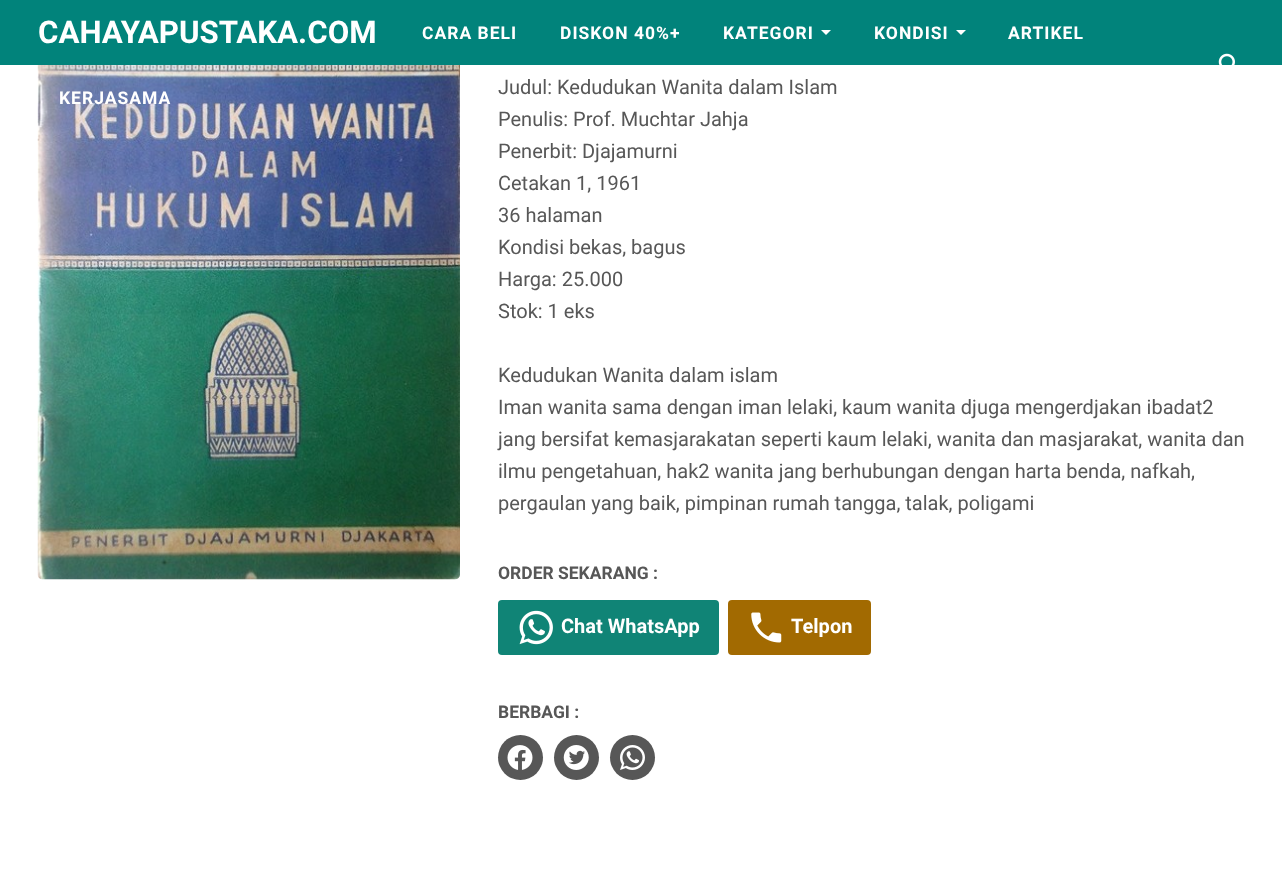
<?xml version="1.0" encoding="UTF-8"?>
<svg xmlns="http://www.w3.org/2000/svg" xmlns:xlink="http://www.w3.org/1999/xlink" width="1282" height="870">
  <rect width="100%" height="100%" fill="#ffffff" />
  <rect width="1282" height="65" fill="#01837b" />
  <path d="M 821 30 h 10 l -5 5 z" fill="#ffffff" />
  <path d="M 956 30 h 10 l -5 5 z" fill="#ffffff" />
  <image x="1218" y="53" width="17" height="12" xlink:href="image1.png" />
  <image x="37" y="65" width="423" height="515" xlink:href="image2.png" />
  <rect x="498" y="600" width="221" height="55" rx="4" fill="#108476" />
  <image x="519" y="610" width="34" height="35" xlink:href="image3.png" />
  <rect x="728" y="600" width="143" height="55" rx="4" fill="#a26a01" />
  <image x="751" y="612" width="31" height="31" xlink:href="image4.png" />
  <circle cx="520.5" cy="757.5" r="22.5" fill="#575757" />
  <image x="507" y="745" width="26" height="25" xlink:href="image5.png" />
  <circle cx="576.5" cy="757.5" r="22.5" fill="#575757" />
  <image x="563" y="745" width="26" height="25" xlink:href="image6.png" />
  <circle cx="632.5" cy="757.5" r="22.5" fill="#575757" />
  <image x="620" y="745" width="25" height="25" xlink:href="image7.png" />
  <text x="38" y="43" style="font-family: Roboto; font-size: 31.25px; font-weight: bold; fill: #ffffff">CAHAYAPUSTAKA.COM</text>
  <text x="422" y="39" style="font-family: Roboto; font-size: 17.5px; font-weight: bold; letter-spacing: 1px; fill: #ffffff">CARA BELI</text>
  <text x="560" y="39" style="font-family: Roboto; font-size: 17.5px; font-weight: bold; letter-spacing: 1px; fill: #ffffff">DISKON 40%+</text>
  <text x="723" y="39" style="font-family: Roboto; font-size: 17.5px; font-weight: bold; letter-spacing: 1px; fill: #ffffff">KATEGORI</text>
  <text x="874" y="39" style="font-family: Roboto; font-size: 17.5px; font-weight: bold; letter-spacing: 1px; fill: #ffffff">KONDISI</text>
  <text x="1008" y="39" style="font-family: Roboto; font-size: 17.5px; font-weight: bold; letter-spacing: 1px; fill: #ffffff">ARTIKEL</text>
  <text x="59" y="104" style="font-family: Roboto; font-size: 17.5px; font-weight: bold; letter-spacing: 1px; fill: #ffffff">KERJASAMA</text>
  <text x="498" y="94" style="font-family: Roboto; font-size: 20px; fill: #575757">Judul: Kedudukan Wanita dalam Islam</text>
  <text x="498" y="126" style="font-family: Roboto; font-size: 20px; fill: #575757">Penulis: Prof. Muchtar Jahja</text>
  <text x="498" y="158" style="font-family: Roboto; font-size: 20px; fill: #575757">Penerbit: Djajamurni</text>
  <text x="498" y="190" style="font-family: Roboto; font-size: 20px; fill: #575757">Cetakan 1, 1961</text>
  <text x="498" y="222" style="font-family: Roboto; font-size: 20px; fill: #575757">36 halaman</text>
  <text x="498" y="254" style="font-family: Roboto; font-size: 20px; fill: #575757">Kondisi bekas, bagus</text>
  <text x="498" y="286" style="font-family: Roboto; font-size: 20px; fill: #575757">Harga: 25.000</text>
  <text x="498" y="318" style="font-family: Roboto; font-size: 20px; fill: #575757">Stok: 1 eks</text>
  <text x="498" y="382" style="font-family: Roboto; font-size: 20px; fill: #575757">Kedudukan Wanita dalam islam</text>
  <text x="498" y="414" style="font-family: Roboto; font-size: 20px; fill: #575757">Iman wanita sama dengan iman lelaki, kaum wanita djuga mengerdjakan ibadat2</text>
  <text x="498" y="446" style="font-family: Roboto; font-size: 20px; fill: #575757">jang bersifat kemasjarakatan seperti kaum lelaki, wanita dan masjarakat, wanita dan</text>
  <text x="498" y="478" style="font-family: Roboto; font-size: 20px; fill: #575757">ilmu pengetahuan, hak2 wanita jang berhubungan dengan harta benda, nafkah,</text>
  <text x="498" y="510" style="font-family: Roboto; font-size: 20px; fill: #575757">pergaulan yang baik, pimpinan rumah tangga, talak, poligami</text>
  <text x="498" y="579" style="font-family: Roboto; font-size: 17.5px; font-weight: bold; fill: #575757">ORDER SEKARANG :</text>
  <text x="561" y="633" style="font-family: Roboto; font-size: 20px; font-weight: bold; fill: #ffffff">Chat WhatsApp</text>
  <text x="791" y="633" style="font-family: Roboto; font-size: 20px; font-weight: bold; fill: #ffffff">Telpon</text>
  <text x="498" y="718" style="font-family: Roboto; font-size: 17.5px; font-weight: bold; fill: #575757">BERBAGI :</text>
</svg>
